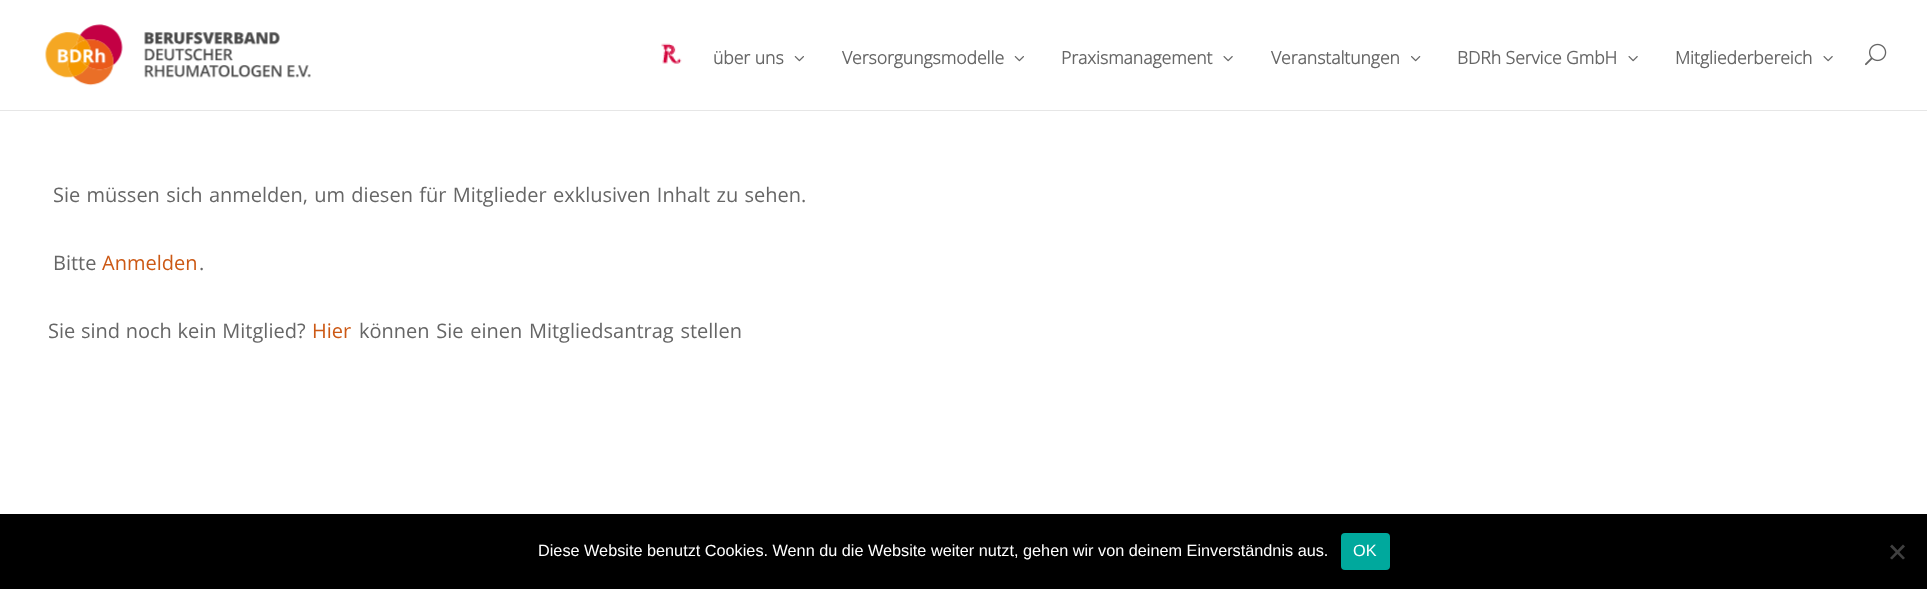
<?xml version="1.0" encoding="UTF-8"?>
<svg xmlns="http://www.w3.org/2000/svg" xmlns:xlink="http://www.w3.org/1999/xlink" width="1927" height="589">
  <rect width="100%" height="100%" fill="#ffffff" />
  <path d="M 0 110 v 1 h 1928 v -110 v 109 z" fill="#e6e6e6" />
  <image x="45" y="24" width="266" height="62" xlink:href="image1.png" />
  <image x="661" y="43" width="21" height="21" xlink:href="image2.png" />
  <image x="794" y="56" width="10" height="6" xlink:href="image3.png" />
  <image x="1014" y="56" width="10" height="6" xlink:href="image3.png" />
  <image x="1223" y="56" width="10" height="6" xlink:href="image4.png" />
  <image x="1411" y="56" width="10" height="6" xlink:href="image5.png" />
  <image x="1628" y="56" width="10" height="6" xlink:href="image4.png" />
  <image x="1823" y="56" width="10" height="6" xlink:href="image4.png" />
  <image x="1865" y="43" width="22" height="23" xlink:href="image6.png" />
  <rect y="514" width="1927" height="75" fill="#000000" />
  <rect x="1341" y="533" width="49" height="37" rx="4" fill="#00a99d" />
  <path d="M 1903 544.5 l 2 2 l -13 13 l -2 -1.5 z" fill="#404040" />
  <path d="M 1890 546.5 l 2 -2 l 13 13.5 l -2 1.5 z" fill="#404040" />
  <text x="713" y="64" style="font-family: Open Sans; font-size: 17.5px; font-weight: bold; fill: #666666">über uns</text>
  <text x="842" y="64" style="font-family: Open Sans; font-size: 17.5px; font-weight: bold; fill: #666666">Versorgungsmodelle</text>
  <text x="1061" y="64" style="font-family: Open Sans; font-size: 17.5px; font-weight: bold; fill: #666666">Praxismanagement</text>
  <text x="1271" y="64" style="font-family: Open Sans; font-size: 17.5px; font-weight: bold; fill: #666666">Veranstaltungen</text>
  <text x="1457" y="64" style="font-family: Open Sans; font-size: 17.5px; font-weight: bold; fill: #666666">BDRh Service GmbH</text>
  <text x="1675" y="64" style="font-family: Open Sans; font-size: 17.5px; font-weight: bold; fill: #666666">Mitgliederbereich</text>
  <text x="53" y="202" word-spacing="1.1" style="font-family: Open Sans; font-size: 20px; fill: #666666">Sie müssen sich anmelden, um diesen für Mitglieder exklusiven Inhalt zu sehen.</text>
  <text x="53" y="270" style="font-family: Open Sans; font-size: 20px; fill: #666666">Bitte</text>
  <text x="102" y="270" style="font-family: Open Sans; font-size: 20px; fill: #cc5915">Anmelden</text>
  <text x="199" y="270" style="font-family: Open Sans; font-size: 20px; fill: #666666">.</text>
  <text x="48" y="338" word-spacing="0.5" style="font-family: Open Sans; font-size: 20px; fill: #666666">Sie sind noch kein Mitglied?</text>
  <text x="312" y="338" style="font-family: Open Sans; font-size: 20px; fill: #cc5915">Hier</text>
  <text x="359" y="338" word-spacing="1.5" style="font-family: Open Sans; font-size: 20px; fill: #666666">können Sie einen Mitgliedsantrag stellen</text>
  <text x="538" y="556" style="font-family: Liberation Sans; font-size: 16.25px; fill: #ffffff">Diese Website benutzt Cookies. Wenn du die Website weiter nutzt, gehen wir von deinem Einverständnis aus.</text>
  <text x="1353" y="556" style="font-family: Liberation Sans; font-size: 16.25px; fill: #ffffff">OK</text>
</svg>
